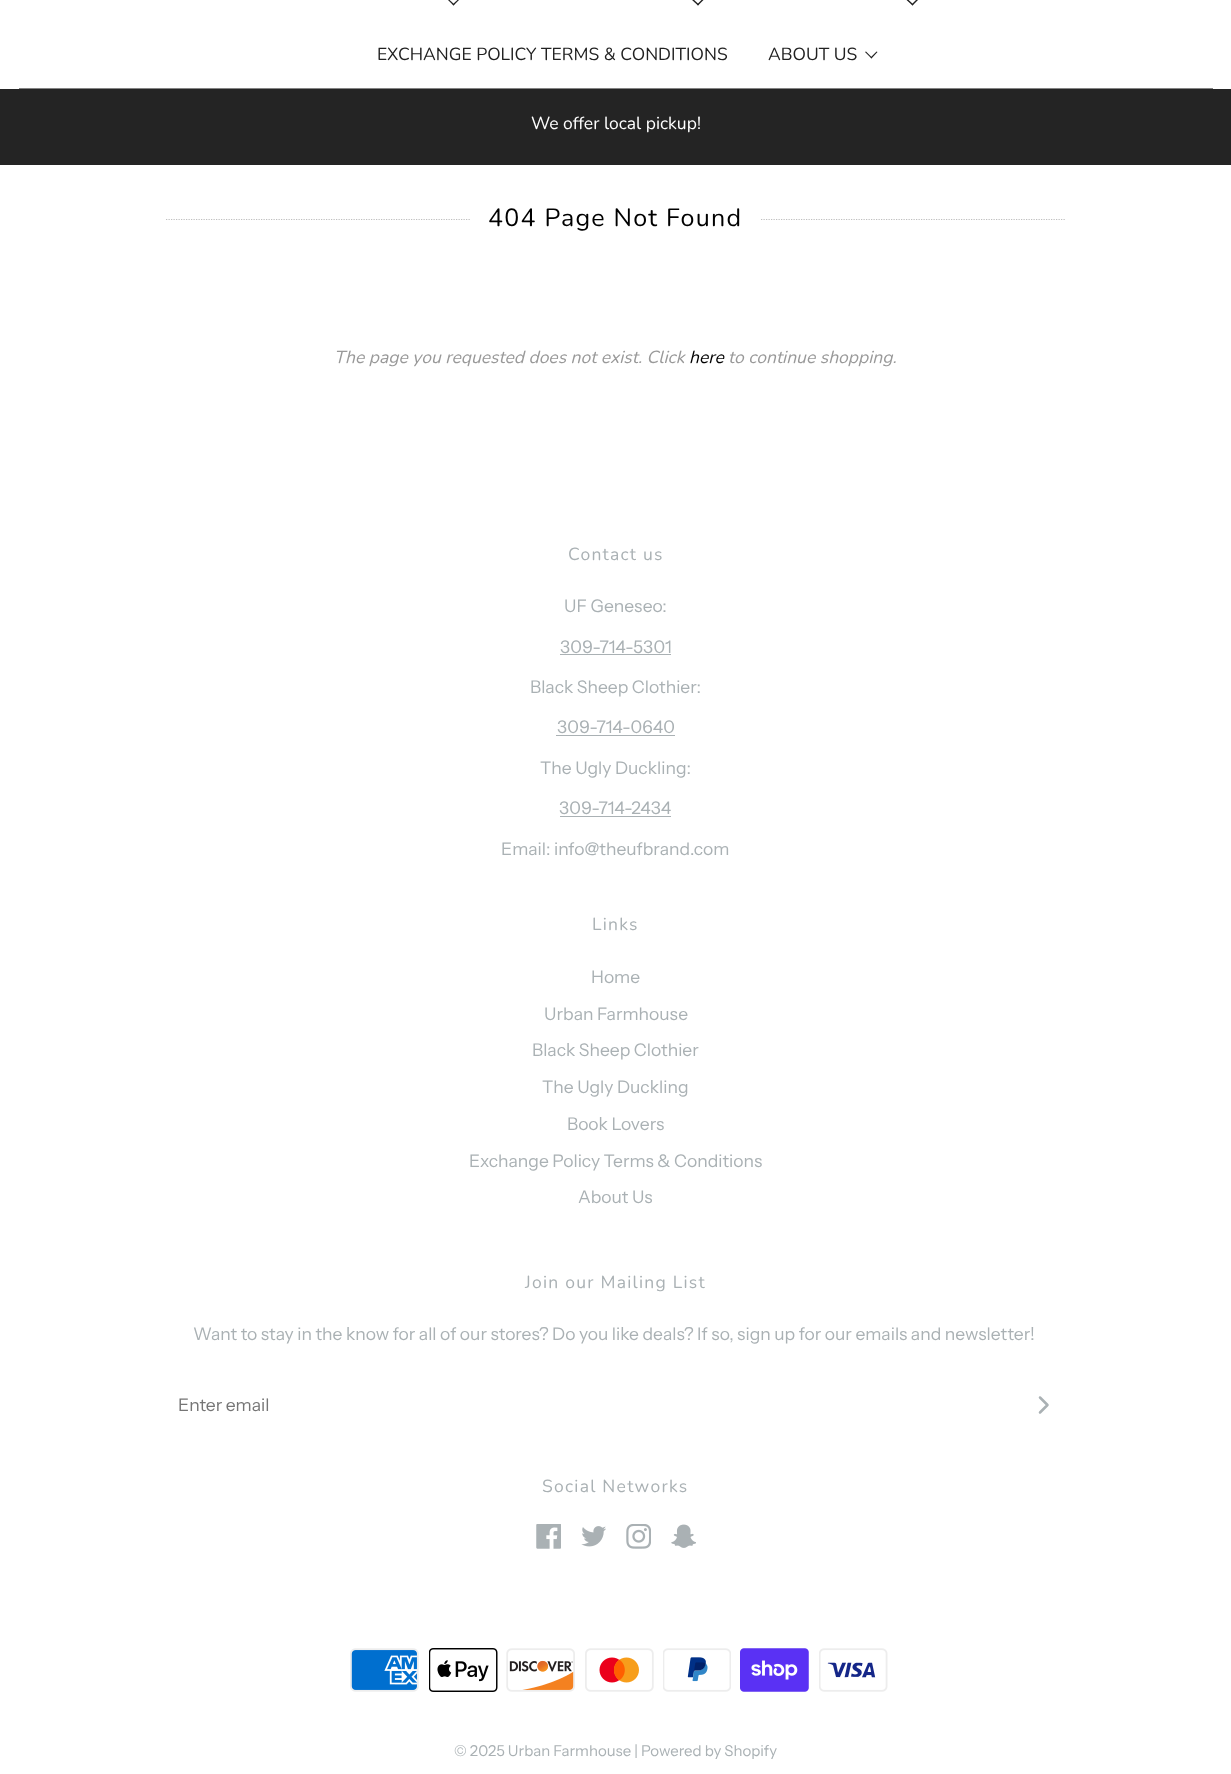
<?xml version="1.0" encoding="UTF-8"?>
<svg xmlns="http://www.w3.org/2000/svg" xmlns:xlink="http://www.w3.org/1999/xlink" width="1231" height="1774">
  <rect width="100%" height="100%" fill="#ffffff" />
  <rect x="19" y="88" width="1194" height="1" fill="#838383" />
  <path d="M 459 -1.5 l 0.5 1 l -6 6 l -1 -1 z" fill="#212121" />
  <path d="M 448 -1.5 l 6.5 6 l -1 1 l -6 -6 z" fill="#212121" />
  <path d="M 703 -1.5 l 1 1 l -6 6 l -1 -1 z" fill="#212121" />
  <path d="M 692.5 -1.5 l 6.5 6 l -1 1 l -6.5 -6 z" fill="#212121" />
  <path d="M 917.5 -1.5 l 1 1 l -6 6 l -1 -1 z" fill="#212121" />
  <path d="M 907 -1.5 l 6.5 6 l -1 1 l -6.5 -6 z m -30.5 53 l 1 0.5 l -6 6.5 l -1 -1 z" fill="#212121" />
  <path d="M 866 51.5 l 6 6 l -0.5 1 l -6.5 -6.5 z" fill="#212121" />
  <rect y="89" width="1231" height="76" fill="#242424" />
  <path d="M 166 219.5 h 900" fill="none" stroke="#bfbfbf" stroke-width="1.2" stroke-dasharray="1.25 1.25" />
  <rect x="471" y="218" width="289" height="3" fill="#ffffff" />
  <rect x="560" y="654" width="111" height="1" fill="#aab1b4" />
  <rect x="556" y="735" width="119" height="1" fill="#aab1b4" />
  <rect x="560" y="816" width="111" height="1" fill="#aab1b4" />
  <path d="M 1040 1412.5 l 7.5 -7.5 l -7.5 -7.5" fill="none" stroke="#aab1b4" stroke-width="2.5" stroke-linecap="round" stroke-linejoin="round" />
  <image x="536" y="1524" width="25" height="25" xlink:href="image1.png" />
  <image x="581" y="1526" width="25" height="21" xlink:href="image2.png" />
  <image x="626" y="1524" width="25" height="25" xlink:href="image3.png" />
  <image x="671" y="1524" width="25" height="24" xlink:href="image4.png" />
  <image x="350" y="1648" width="69" height="44" xlink:href="image5.png" />
  <image x="429" y="1648" width="69" height="44" xlink:href="image6.png" />
  <image x="506" y="1648" width="69" height="44" xlink:href="image7.png" />
  <image x="585" y="1648" width="69" height="44" xlink:href="image8.png" />
  <image x="663" y="1648" width="68" height="44" xlink:href="image9.png" />
  <image x="740" y="1648" width="69" height="44" xlink:href="image10.png" />
  <image x="819" y="1648" width="69" height="44" xlink:href="image11.png" />
  <text x="377" y="60" style="font-family: Nunito; font-size: 17.5px; fill: #212121">EXCHANGE POLICY TERMS &amp; CONDITIONS</text>
  <text x="768" y="60" style="font-family: Nunito; font-size: 17.5px; fill: #212121">ABOUT US</text>
  <text x="531" y="129" style="font-family: Nunito; font-size: 17.5px; fill: #ffffff">We offer local pickup!</text>
  <text x="488" y="226" style="font-family: Nunito; font-size: 25px; letter-spacing: 1.25px; fill: #000000">404 Page Not Found</text>
  <text x="334" y="363" style="font-family: Nunito; font-size: 17.5px; font-style: italic; fill: #999999">The page you requested does not exist. Click</text>
  <text x="689" y="363" style="font-family: Nunito; font-size: 17.5px; font-style: italic; fill: #000000">here</text>
  <text x="728" y="363" style="font-family: Nunito; font-size: 17.5px; font-style: italic; fill: #999999">to continue shopping.</text>
  <text x="568" y="560" style="font-family: Nunito; font-size: 17.5px; letter-spacing: 1.25px; fill: #aab1b4">Contact us</text>
  <text x="564" y="612" style="font-family: Instrument Sans; font-size: 17.5px; fill: #aab1b4">UF Geneseo:</text>
  <text x="560" y="653" style="font-family: Instrument Sans; font-size: 17.5px; fill: #aab1b4">309-714-5301</text>
  <text x="530" y="693" style="font-family: Instrument Sans; font-size: 17.5px; fill: #aab1b4">Black Sheep Clothier:</text>
  <text x="557" y="733" style="font-family: Instrument Sans; font-size: 17.5px; fill: #aab1b4">309-714-0640</text>
  <text x="540" y="774" style="font-family: Instrument Sans; font-size: 17.5px; fill: #aab1b4">The Ugly Duckling:</text>
  <text x="559" y="814" style="font-family: Instrument Sans; font-size: 17.5px; fill: #aab1b4">309-714-2434</text>
  <text x="501" y="855" style="font-family: Instrument Sans; font-size: 17.5px; fill: #aab1b4">Email: info@theufbrand.com</text>
  <text x="592" y="930" style="font-family: Nunito; font-size: 17.5px; letter-spacing: 1.25px; fill: #aab1b4">Links</text>
  <text x="591" y="983" style="font-family: Instrument Sans; font-size: 17.5px; fill: #aab1b4">Home</text>
  <text x="544" y="1020" style="font-family: Instrument Sans; font-size: 17.5px; fill: #aab1b4">Urban Farmhouse</text>
  <text x="532" y="1056" style="font-family: Instrument Sans; font-size: 17.5px; fill: #aab1b4">Black Sheep Clothier</text>
  <text x="542" y="1093" style="font-family: Instrument Sans; font-size: 17.5px; fill: #aab1b4">The Ugly Duckling</text>
  <text x="567" y="1130" style="font-family: Instrument Sans; font-size: 17.5px; fill: #aab1b4">Book Lovers</text>
  <text x="469" y="1167" style="font-family: Instrument Sans; font-size: 17.5px; fill: #aab1b4">Exchange Policy Terms &amp; Conditions</text>
  <text x="578" y="1203" style="font-family: Instrument Sans; font-size: 17.5px; fill: #aab1b4">About Us</text>
  <text x="525" y="1288" style="font-family: Nunito; font-size: 17.5px; letter-spacing: 1.25px; fill: #aab1b4">Join our Mailing List</text>
  <text x="193" y="1340" style="font-family: Instrument Sans; font-size: 17.5px; fill: #aab1b4">Want to stay in the know for all of our stores? Do you like deals? If so, sign up for our emails and newsletter!</text>
  <text x="178" y="1411" style="font-family: Instrument Sans; font-size: 17.5px; fill: #757575">Enter email</text>
  <text x="542" y="1492" style="font-family: Nunito; font-size: 17.5px; letter-spacing: 1.25px; fill: #aab1b4">Social Networks</text>
  <text x="454" y="1756" style="font-family: Instrument Sans; font-size: 15px; fill: #aab1b4">© 2025 Urban Farmhouse | Powered by Shopify</text>
</svg>
